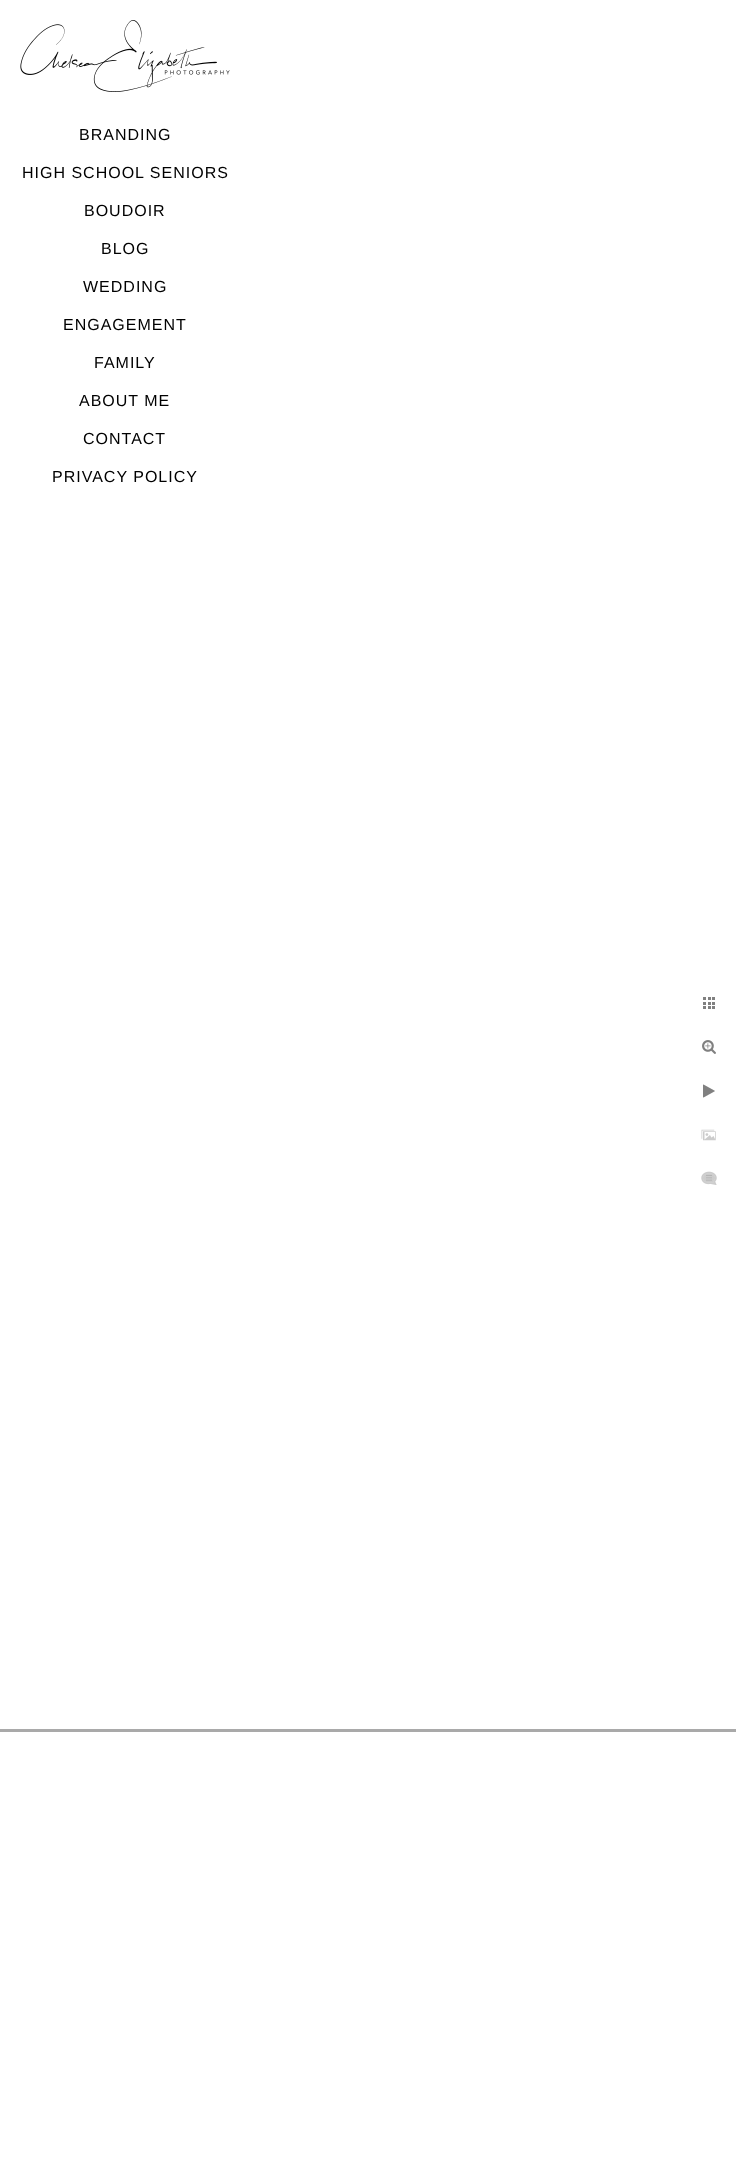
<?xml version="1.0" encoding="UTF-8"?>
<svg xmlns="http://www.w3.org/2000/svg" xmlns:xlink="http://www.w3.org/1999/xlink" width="736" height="2161">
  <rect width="100%" height="100%" fill="#ffffff" />
  <image x="20" y="20" width="210" height="72" xlink:href="image1.png" />
  <image x="703" y="997" width="12" height="12" xlink:href="image2.png" />
  <image x="702" y="1040" width="14" height="14" xlink:href="image3.png" />
  <image x="703" y="1084" width="12" height="14" xlink:href="image4.png" />
  <image x="701" y="1129" width="15" height="12" xlink:href="image5.png" />
  <image x="701" y="1171" width="16" height="14" xlink:href="image6.png" />
  <rect y="1729" width="736" height="3" fill="#a9a9a9" />
  <text x="79" y="140" style="font-family: Liberation Sans; font-size: 16px; letter-spacing: 1px; fill: #000000">BRANDING</text>
  <text x="22" y="178" style="font-family: Liberation Sans; font-size: 16px; letter-spacing: 1px; fill: #000000">HIGH SCHOOL SENIORS</text>
  <text x="84" y="216" style="font-family: Liberation Sans; font-size: 16px; letter-spacing: 1px; fill: #000000">BOUDOIR</text>
  <text x="101" y="254" style="font-family: Liberation Sans; font-size: 16px; letter-spacing: 1px; fill: #000000">BLOG</text>
  <text x="83" y="292" style="font-family: Liberation Sans; font-size: 16px; letter-spacing: 1px; fill: #000000">WEDDING</text>
  <text x="63" y="330" style="font-family: Liberation Sans; font-size: 16px; letter-spacing: 1px; fill: #000000">ENGAGEMENT</text>
  <text x="94" y="368" style="font-family: Liberation Sans; font-size: 16px; letter-spacing: 1px; fill: #000000">FAMILY</text>
  <text x="79" y="406" style="font-family: Liberation Sans; font-size: 16px; letter-spacing: 1px; fill: #000000">ABOUT ME</text>
  <text x="83" y="444" style="font-family: Liberation Sans; font-size: 16px; letter-spacing: 1px; fill: #000000">CONTACT</text>
  <text x="52" y="482" style="font-family: Liberation Sans; font-size: 16px; letter-spacing: 1px; fill: #000000">PRIVACY POLICY</text>
</svg>
